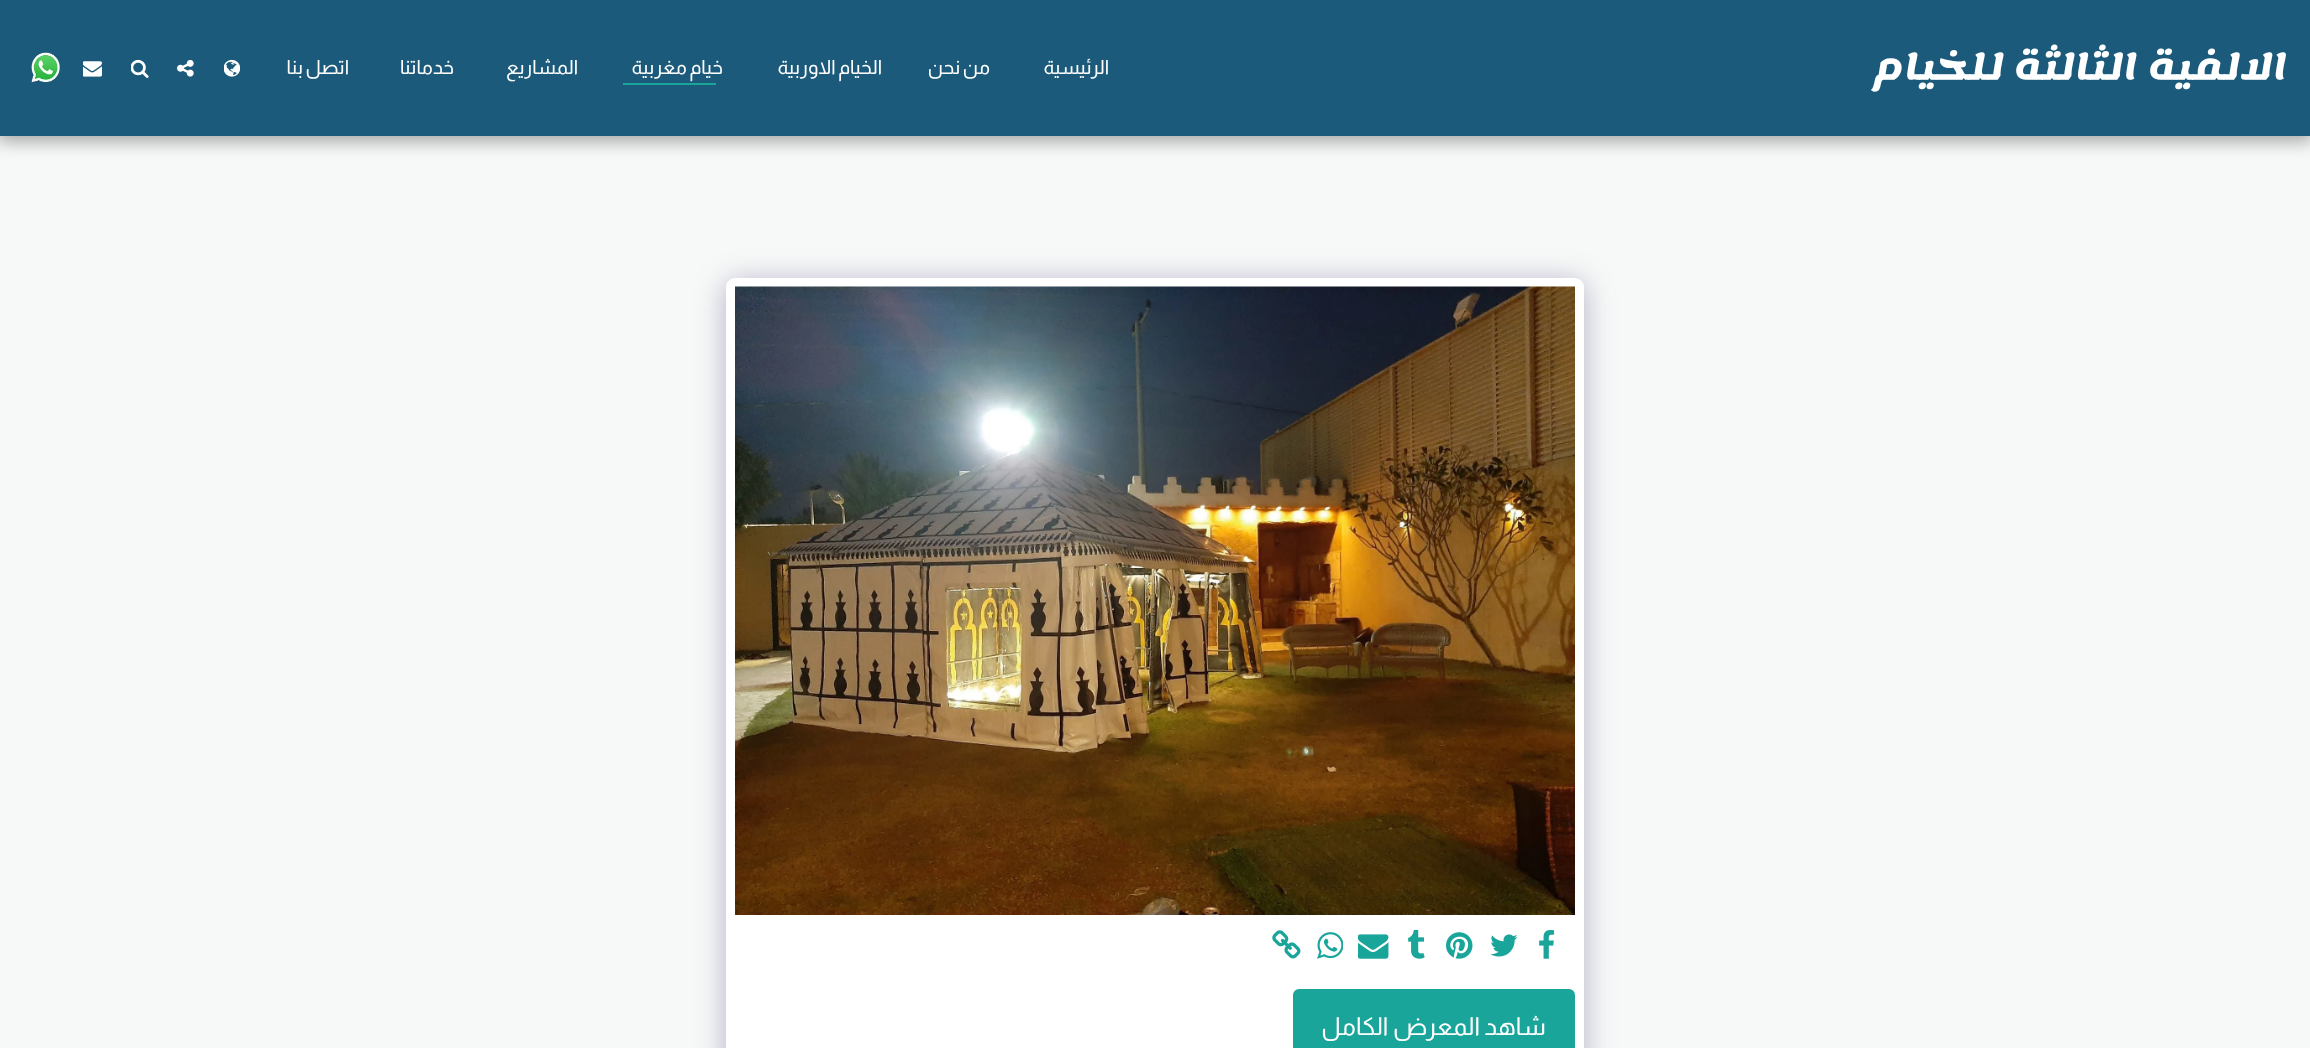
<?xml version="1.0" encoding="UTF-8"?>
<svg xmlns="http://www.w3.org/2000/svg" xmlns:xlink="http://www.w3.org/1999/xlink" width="2310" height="1048">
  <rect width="100%" height="100%" fill="#f7f9f8" />
  <rect x="-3" width="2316" height="141" fill="#000000" fill-opacity="0.35" filter="blur(9px)" />
  <rect width="2310" height="136" fill="#1b5a7a" />
  <rect x="623" y="83" width="93" height="2" fill="#1aa59a" />
  <image x="224" y="59" width="16" height="18" xlink:href="image1.png" />
  <image x="177" y="59" width="17" height="18" xlink:href="image2.png" />
  <image x="131" y="59" width="18" height="19" xlink:href="image3.png" />
  <image x="83" y="61" width="19" height="16" xlink:href="image4.png" />
  <image x="31" y="52" width="29" height="31" xlink:href="image5.png" />
  <rect x="726" y="282" width="858" height="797" rx="9" fill="#4d3f7a" fill-opacity="0.4" filter="blur(15px)" />
  <rect x="726" y="278" width="858" height="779" rx="9" fill="#ffffff" />
  <image x="735" y="286" width="840" height="629" xlink:href="image6.png" />
  <image x="1539" y="930" width="16" height="29" xlink:href="image7.png" />
  <image x="1490" y="934" width="28" height="23" xlink:href="image8.png" />
  <image x="1446" y="932" width="27" height="27" xlink:href="image9.png" />
  <image x="1408" y="930" width="17" height="29" xlink:href="image10.png" />
  <image x="1358" y="934" width="31" height="25" xlink:href="image11.png" />
  <image x="1317" y="932" width="26" height="27" xlink:href="image12.png" />
  <image x="1272" y="930" width="29" height="29" xlink:href="image13.png" />
  <rect x="1294" y="990" width="280" height="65" rx="5" fill="#1aa59a" stroke="#1aa59a" stroke-width="2" />
  <text x="2287" y="79" style="font-family: Lemonada; font-size: 34.5px; font-weight: bold; direction: rtl; fill: #ffffff">الالفية الثالثة للخيام</text>
  <text x="1109" y="74" style="font-family: Almarai; font-size: 19.5px; letter-spacing: 0.75px; direction: rtl; fill: #ffffff">الرئيسية</text>
  <text x="990" y="74" word-spacing="-1" style="font-family: Almarai; font-size: 19.5px; letter-spacing: 0.75px; direction: rtl; fill: #ffffff">من نحن</text>
  <text x="882" y="74" word-spacing="-1" style="font-family: Almarai; font-size: 19.5px; letter-spacing: 0.75px; direction: rtl; fill: #ffffff">الخيام الاوربية</text>
  <text x="723" y="74" word-spacing="-1" style="font-family: Almarai; font-size: 19.5px; letter-spacing: 0.75px; direction: rtl; fill: #ffffff">خيام مغربية</text>
  <text x="578" y="74" style="font-family: Almarai; font-size: 19.5px; letter-spacing: 0.75px; direction: rtl; fill: #ffffff">المشاريع</text>
  <text x="454" y="74" style="font-family: Almarai; font-size: 19.5px; letter-spacing: 0.75px; direction: rtl; fill: #ffffff">خدماتنا</text>
  <text x="349" y="74" word-spacing="-1" style="font-family: Almarai; font-size: 19.5px; letter-spacing: 0.75px; direction: rtl; fill: #ffffff">اتصل بنا</text>
  <text x="1546" y="1035" style="font-family: Almarai; font-size: 24.75px; direction: rtl; fill: #ffffff">شاهد المعرض الكامل</text>
</svg>
